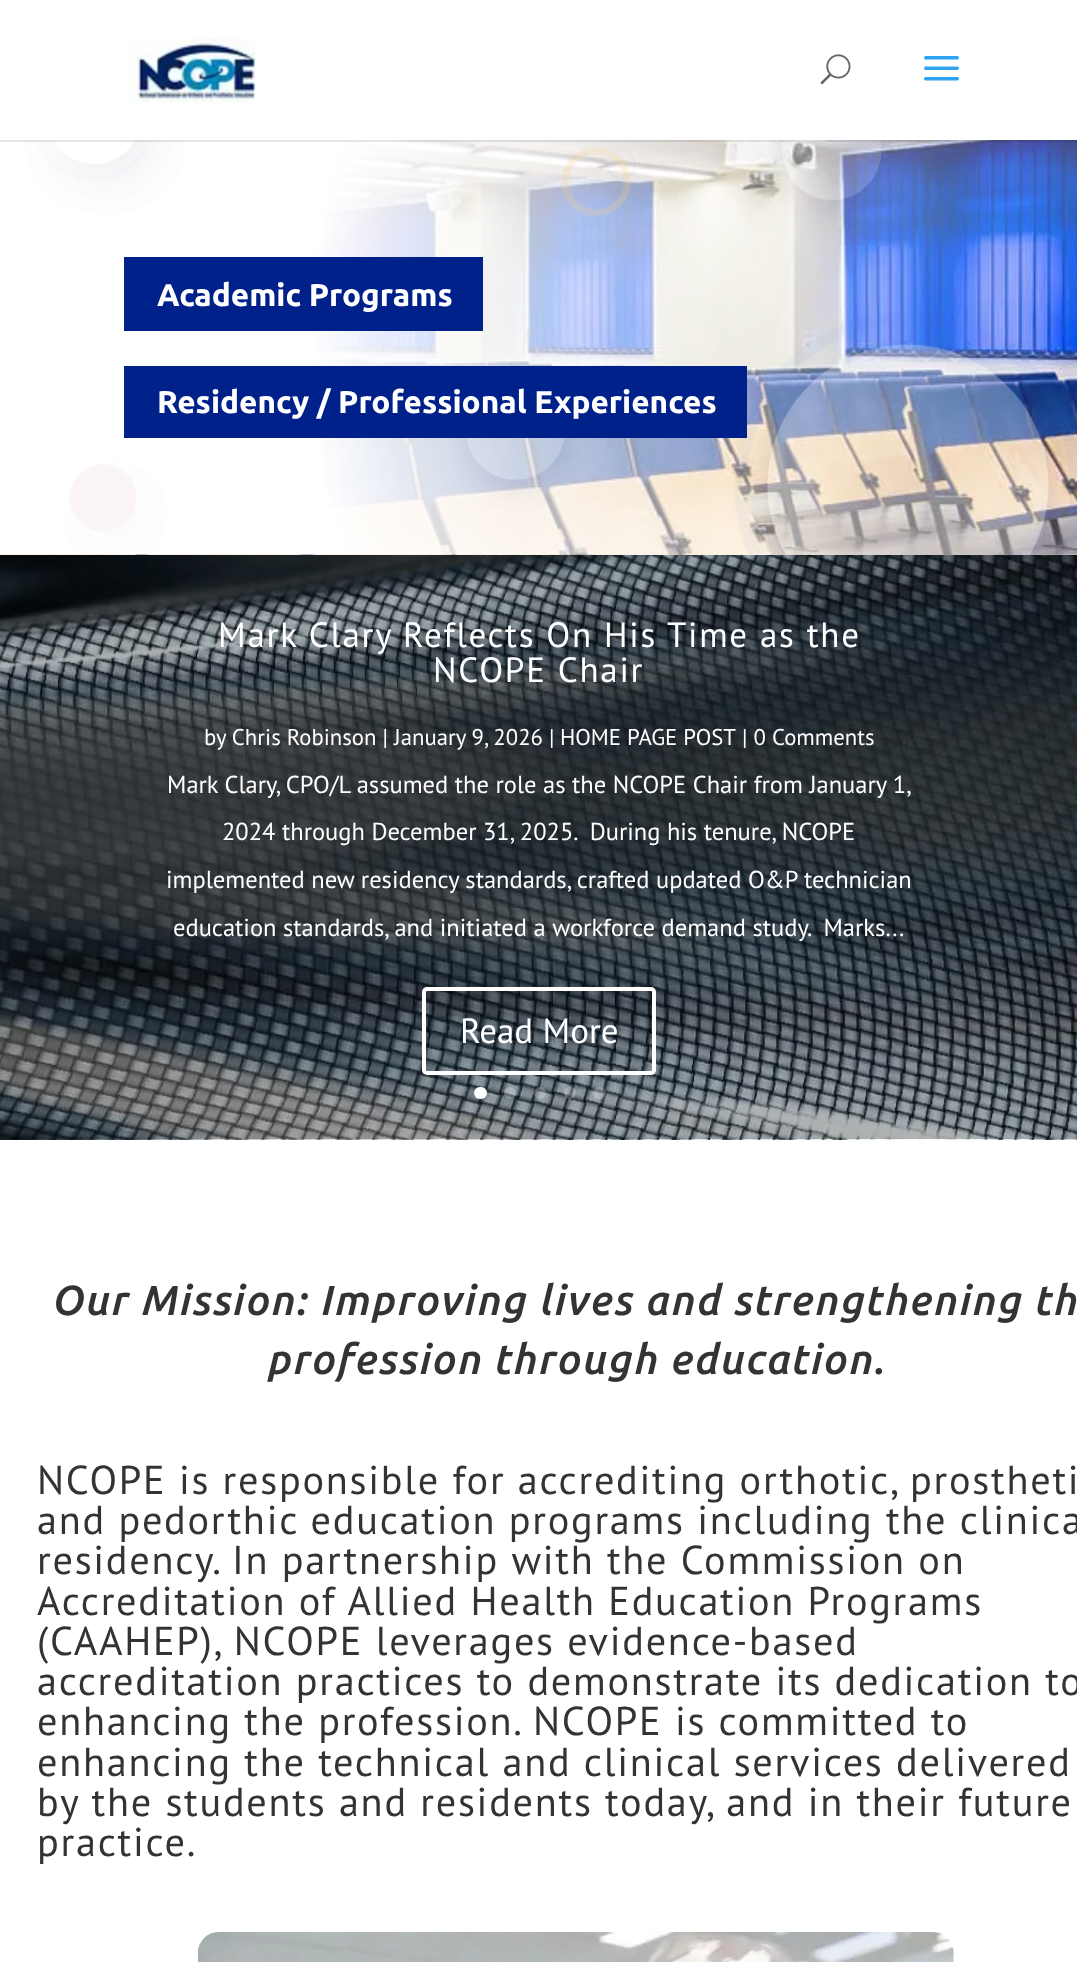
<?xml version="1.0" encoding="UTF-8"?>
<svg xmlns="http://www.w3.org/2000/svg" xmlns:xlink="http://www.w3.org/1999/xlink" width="1077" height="1962">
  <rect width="100%" height="100%" fill="#ffffff" />
  <image x="0" y="140" width="1077" height="415" xlink:href="image4.png" />
  <image x="0" y="140" width="1077" height="415" xlink:href="image5.png" />
  <rect y="140" width="1077" height="2" fill="#000000" fill-opacity="0.1" />
  <image x="128" y="38" width="129" height="65" xlink:href="image1.png" />
  <image x="820" y="54" width="31" height="31" xlink:href="image2.png" />
  <image x="924" y="56" width="35" height="25" xlink:href="image3.png" />
  <rect x="124" y="257" width="359" height="74" fill="#00208a" />
  <rect x="124" y="366" width="623" height="72" fill="#00208a" />
  <image x="0" y="555" width="1077" height="585" xlink:href="image6.png" />
  <rect x="424" y="989" width="230" height="84" rx="3" fill="none" stroke="#ffffff" stroke-width="4" />
  <rect x="474" y="1087" width="13" height="12" rx="6" fill="#ffffff" />
  <circle cx="510" cy="1093" r="6" fill="#ffffff" fill-opacity="0.25" />
  <circle cx="540" cy="1093" r="6" fill="#ffffff" fill-opacity="0.25" />
  <circle cx="570" cy="1093" r="6" fill="#ffffff" fill-opacity="0.25" />
  <rect x="593" y="1087" width="13" height="12" rx="6" fill="#ffffff" fill-opacity="0.25" />
  <image x="197" y="1932" width="757" height="30" xlink:href="image7.png" />
  <text x="157" y="306" style="font-family: Ubuntu; font-size: 31.5px; font-weight: bold; fill: #ffffff">Academic Programs</text>
  <text x="157" y="413" style="font-family: Ubuntu; font-size: 31.5px; font-weight: bold; fill: #ffffff">Residency / Professional Experiences</text>
  <text x="218" y="647" style="font-family: PT Sans; font-size: 35px; letter-spacing: 1.75px; fill: #ffffff">Mark Clary Reflects On His Time as the</text>
  <text x="433" y="682" style="font-family: PT Sans; font-size: 35px; letter-spacing: 1.75px; fill: #ffffff">NCOPE Chair</text>
  <text x="204" y="745" style="font-family: PT Sans; font-size: 22.75px; fill: #ffffff">by Chris Robinson | January 9, 2026 |</text>
  <text x="560" y="745" style="font-family: PT Sans; font-size: 22.75px; fill: #ffffff">HOME PAGE POST</text>
  <text x="742" y="745" style="font-family: PT Sans; font-size: 22.75px; fill: #ffffff">| 0 Comments</text>
  <text x="167" y="793" style="font-family: PT Sans; font-size: 24.5px; fill: #ffffff">Mark Clary, CPO/L assumed the role as the NCOPE Chair from January 1,</text>
  <text x="222" y="840" style="font-family: PT Sans; font-size: 24.5px; fill: #ffffff" xml:space="preserve">2024 through December 31, 2025.  During his tenure, NCOPE</text>
  <text x="166" y="888" style="font-family: PT Sans; font-size: 24.5px; fill: #ffffff">implemented new residency standards, crafted updated O&amp;P technician</text>
  <text x="173" y="936" style="font-family: PT Sans; font-size: 24.5px; fill: #ffffff" xml:space="preserve">education standards, and initiated a workforce demand study.  Marks...</text>
  <text x="460" y="1043" style="font-family: PT Sans; font-size: 35px; fill: #ffffff">Read More</text>
  <text x="51" y="1315" style="font-family: Ubuntu; font-size: 42px; font-weight: 500; font-style: italic; letter-spacing: 1.75px; fill: #333333">Our Mission: Improving lives and strengthening th</text>
  <text x="266" y="1374" style="font-family: Ubuntu; font-size: 42px; font-weight: 500; font-style: italic; letter-spacing: 1.75px; fill: #333333">profession through education.</text>
  <text x="37" y="1494" style="font-family: PT Sans; font-size: 40.25px; letter-spacing: 1.75px; fill: #333333">NCOPE is responsible for accrediting orthotic, prostheti</text>
  <text x="37" y="1534" style="font-family: PT Sans; font-size: 40.25px; letter-spacing: 1.75px; fill: #333333">and pedorthic education programs including the clinica</text>
  <text x="37" y="1574" style="font-family: PT Sans; font-size: 40.25px; letter-spacing: 1.75px; fill: #333333">residency. In partnership with the Commission on</text>
  <text x="37" y="1615" style="font-family: PT Sans; font-size: 40.25px; letter-spacing: 1.75px; fill: #333333">Accreditation of Allied Health Education Programs</text>
  <text x="37" y="1655" style="font-family: PT Sans; font-size: 40.25px; letter-spacing: 1.75px; fill: #333333">(CAAHEP), NCOPE leverages evidence-based</text>
  <text x="37" y="1695" style="font-family: PT Sans; font-size: 40.25px; letter-spacing: 1.75px; fill: #333333">accreditation practices to demonstrate its dedication to</text>
  <text x="37" y="1735" style="font-family: PT Sans; font-size: 40.25px; letter-spacing: 1.75px; fill: #333333">enhancing the profession. NCOPE is committed to</text>
  <text x="37" y="1776" style="font-family: PT Sans; font-size: 40.25px; letter-spacing: 1.75px; fill: #333333">enhancing the technical and clinical services delivered</text>
  <text x="37" y="1816" style="font-family: PT Sans; font-size: 40.25px; letter-spacing: 1.75px; fill: #333333">by the students and residents today, and in their future</text>
  <text x="37" y="1856" style="font-family: PT Sans; font-size: 40.25px; letter-spacing: 1.75px; fill: #333333">practice.</text>
</svg>
